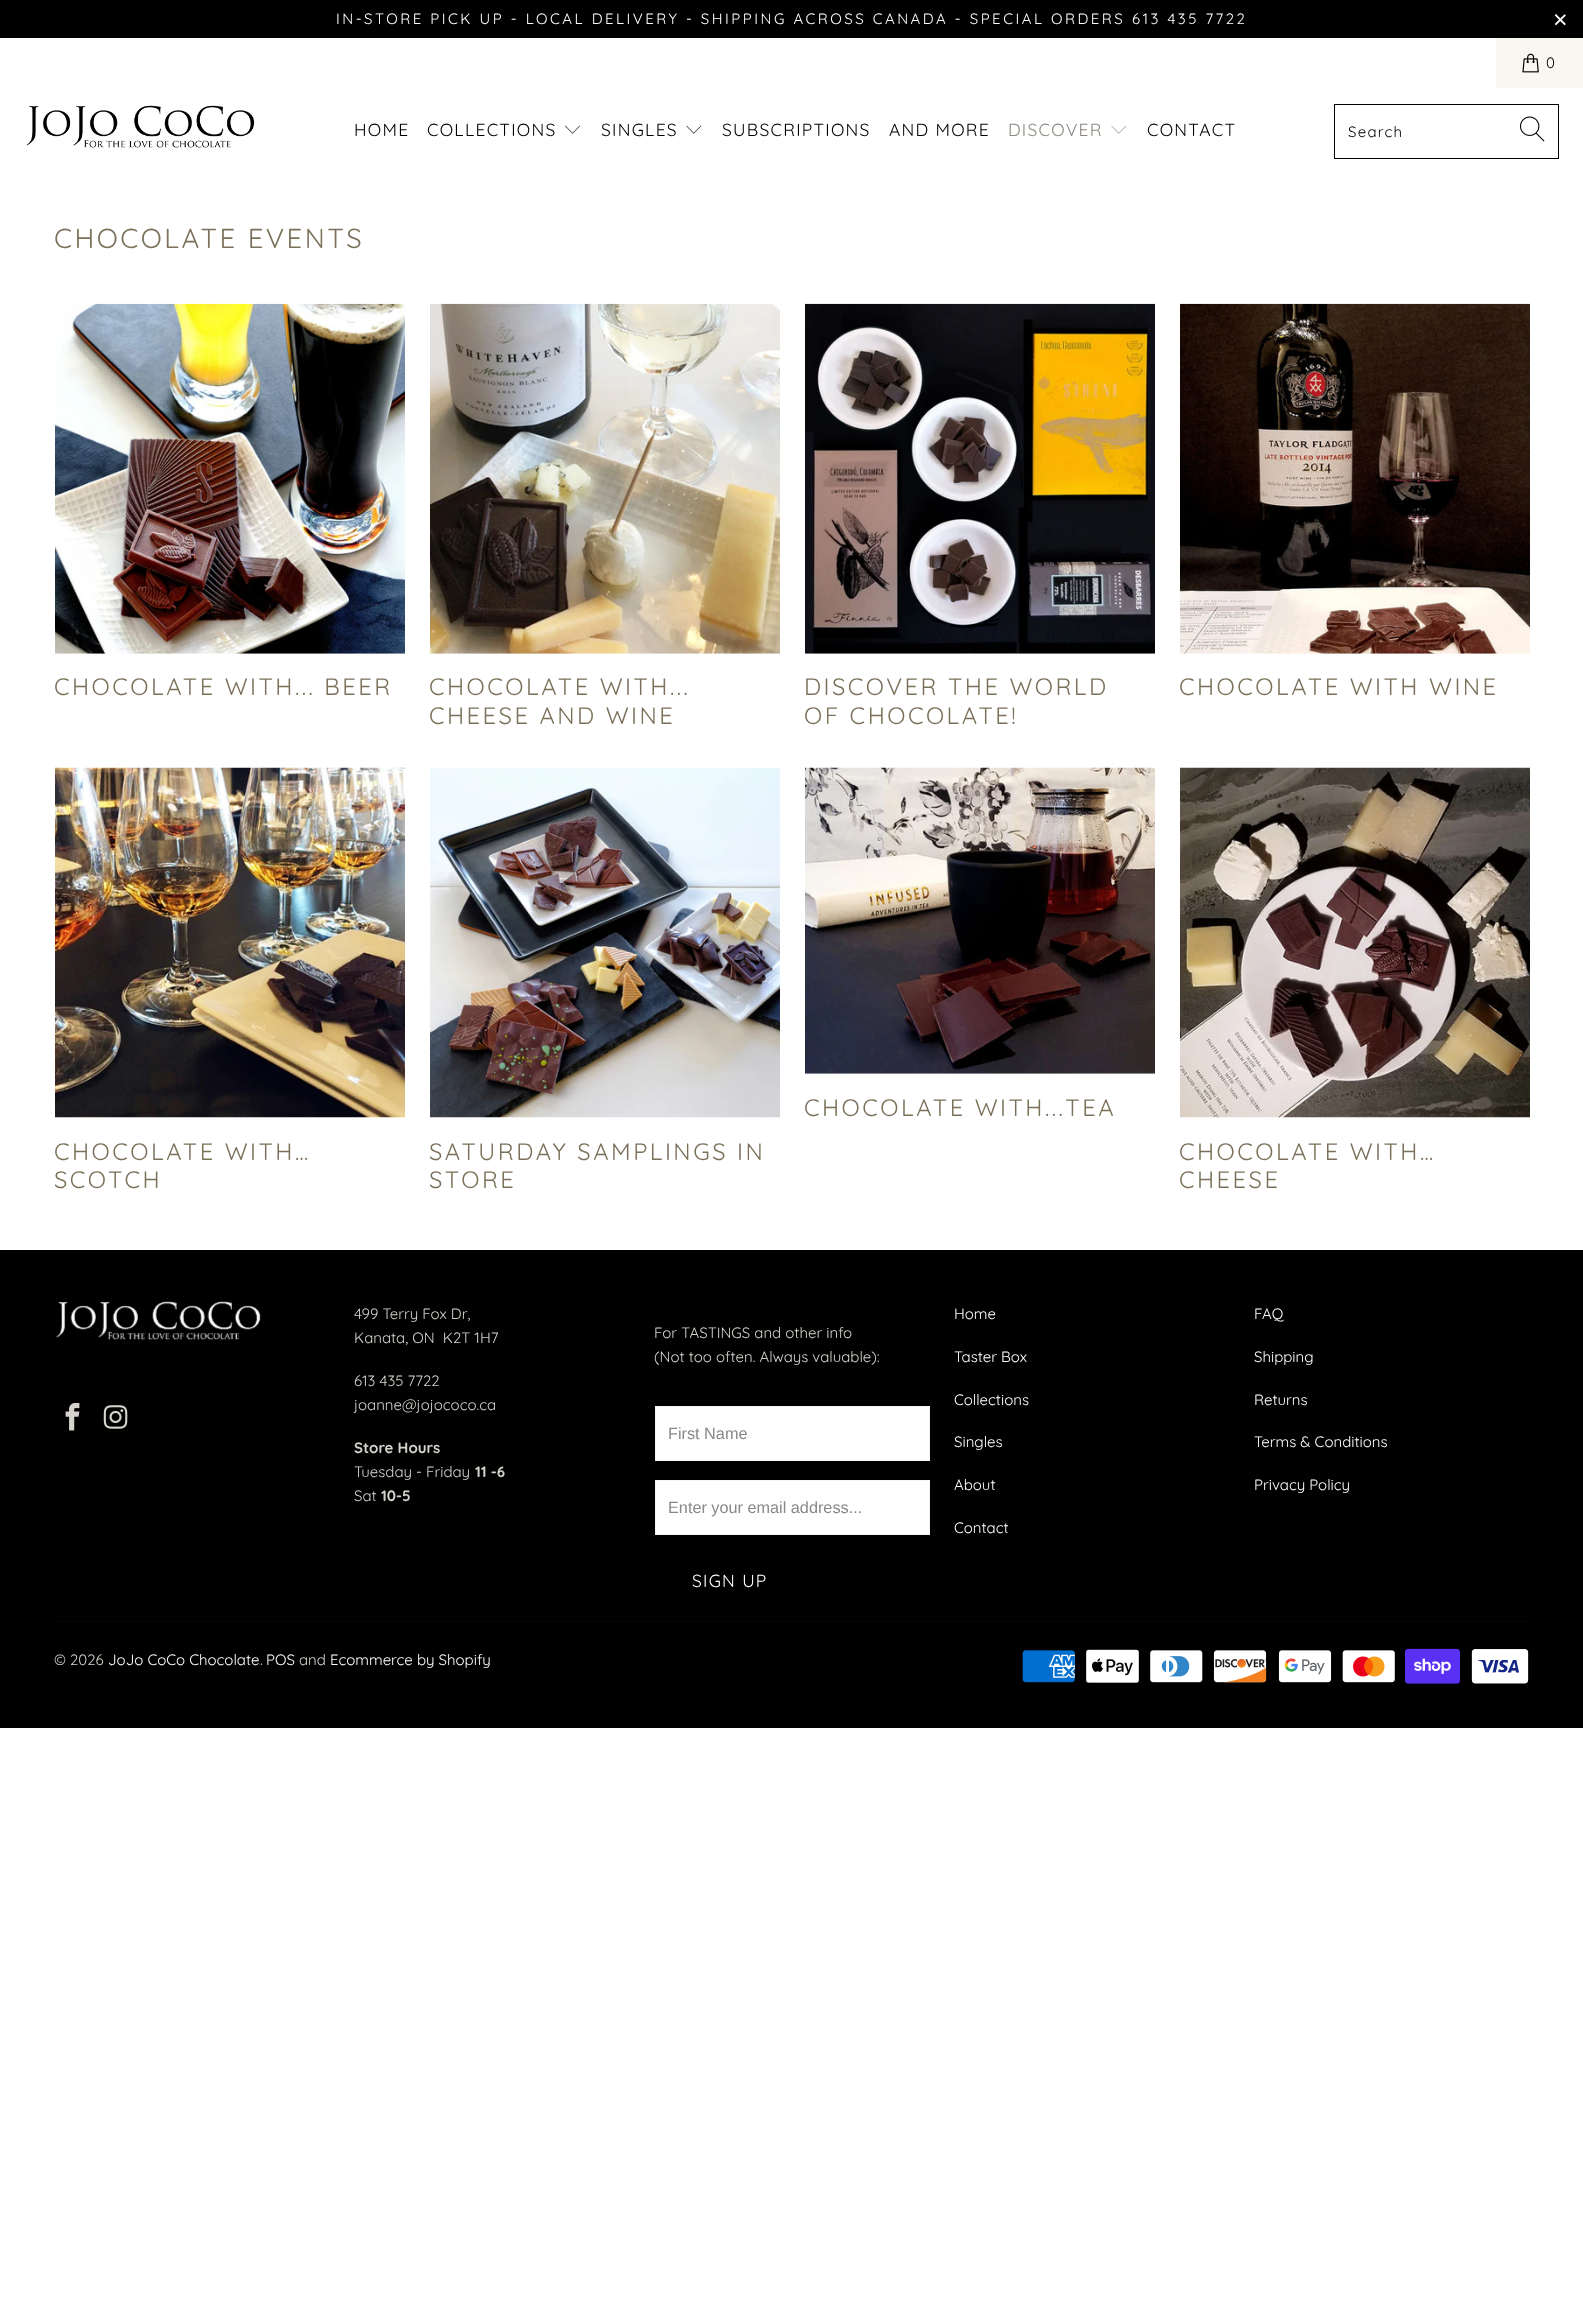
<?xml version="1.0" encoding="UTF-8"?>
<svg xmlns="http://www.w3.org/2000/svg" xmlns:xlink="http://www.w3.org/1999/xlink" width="1583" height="2318">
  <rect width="100%" height="100%" fill="#ffffff" />
  <rect width="1583" height="38" fill="#000000" />
  <rect x="1496" y="38" width="87" height="50" fill="#faf7f0" />
  <image x="1522" y="53" width="17" height="20" xlink:href="image1.png" />
  <image x="26" y="105" width="229" height="43" xlink:href="image2.png" />
  <image x="565" y="125" width="15" height="9" xlink:href="image3.png" />
  <image x="686" y="125" width="16" height="9" xlink:href="image4.png" />
  <image x="1111" y="125" width="16" height="9" xlink:href="image5.png" />
  <rect x="1334.5" y="104.5" width="224" height="54" fill="none" stroke="#000000" />
  <image x="1520" y="116" width="25" height="26" xlink:href="image6.png" />
  <image x="55" y="303" width="350" height="351" xlink:href="image7.png" />
  <image x="430" y="303" width="350" height="351" xlink:href="image8.png" />
  <image x="805" y="303" width="350" height="351" xlink:href="image9.png" />
  <image x="1180" y="303" width="350" height="351" xlink:href="image10.png" />
  <image x="805" y="767" width="350" height="307" xlink:href="image11.png" />
  <image x="55" y="767" width="350" height="351" xlink:href="image12.png" />
  <image x="430" y="767" width="350" height="351" xlink:href="image13.png" />
  <image x="1180" y="767" width="350" height="351" xlink:href="image14.png" />
  <rect y="1251" width="1583" height="477" fill="#000000" />
  <rect y="1250" width="1583" height="1" fill="#050505" />
  <image x="56" y="1301" width="205" height="39" xlink:href="image15.png" />
  <image x="65" y="1403" width="15" height="28" xlink:href="image16.png" />
  <image x="103" y="1405" width="25" height="24" xlink:href="image17.png" />
  <rect x="655.5" y="1406.5" width="274" height="54" fill="#ffffff" stroke="#f5f5f5" />
  <rect x="655.5" y="1480.5" width="274" height="54" fill="#ffffff" stroke="#f5f5f5" />
  <rect x="55" y="1621" width="1475" height="1" fill="#050505" />
  <image x="1022" y="1650" width="53" height="33" xlink:href="image18.png" />
  <image x="1086" y="1649" width="53" height="34" xlink:href="image19.png" />
  <image x="1150" y="1650" width="53" height="33" xlink:href="image20.png" />
  <image x="1213" y="1650" width="54" height="33" xlink:href="image21.png" />
  <image x="1278" y="1650" width="54" height="33" xlink:href="image22.png" />
  <image x="1342" y="1650" width="53" height="33" xlink:href="image23.png" />
  <image x="1405" y="1648" width="55" height="36" xlink:href="image24.png" />
  <image x="1471" y="1649" width="58" height="35" xlink:href="image25.png" />
  <text x="336" y="24" style="font-family: Quicksand; font-size: 15px; letter-spacing: 2.5px; fill: #ffffff">IN-STORE PICK UP - LOCAL DELIVERY - SHIPPING ACROSS CANADA - SPECIAL ORDERS 613 435 7722</text>
  <text x="1553" y="28" style="font-family: Liberation Sans; font-size: 25px; letter-spacing: 2.5px; fill: #ffffff">×</text>
  <text x="1546" y="68" style="font-family: Quicksand; font-size: 15px; letter-spacing: 1.25px; fill: #000000">0</text>
  <text x="354" y="136" style="font-family: Quicksand; font-size: 17.5px; letter-spacing: 1.25px; fill: #000000">HOME</text>
  <text x="427" y="136" style="font-family: Quicksand; font-size: 17.5px; letter-spacing: 1.25px; fill: #000000">COLLECTIONS</text>
  <text x="601" y="136" style="font-family: Quicksand; font-size: 17.5px; letter-spacing: 1.25px; fill: #000000">SINGLES</text>
  <text x="722" y="136" style="font-family: Quicksand; font-size: 17.5px; letter-spacing: 1.25px; fill: #000000">SUBSCRIPTIONS</text>
  <text x="889" y="136" style="font-family: Quicksand; font-size: 17.5px; letter-spacing: 1.25px; fill: #000000">AND MORE</text>
  <text x="1008" y="136" style="font-family: Quicksand; font-size: 17.5px; letter-spacing: 1.25px; fill: #8d8980">DISCOVER</text>
  <text x="1147" y="136" style="font-family: Quicksand; font-size: 17.5px; letter-spacing: 1.25px; fill: #000000">CONTACT</text>
  <text x="1348" y="137" style="font-family: Quicksand; font-size: 15px; letter-spacing: 1.25px; fill: #000000">Search</text>
  <text x="54" y="248" style="font-family: Quicksand; font-size: 27.5px; letter-spacing: 2.5px; fill: #7b715a">CHOCOLATE EVENTS</text>
  <text x="54" y="695" style="font-family: Quicksand; font-size: 23.75px; letter-spacing: 2.5px; fill: #7b715a">CHOCOLATE WITH... BEER</text>
  <text x="429" y="695" style="font-family: Quicksand; font-size: 23.75px; letter-spacing: 2.5px; fill: #7b715a">CHOCOLATE WITH...</text>
  <text x="429" y="724" style="font-family: Quicksand; font-size: 23.75px; letter-spacing: 2.5px; fill: #7b715a">CHEESE AND WINE</text>
  <text x="804" y="695" style="font-family: Quicksand; font-size: 23.75px; letter-spacing: 2.5px; fill: #7b715a">DISCOVER THE WORLD</text>
  <text x="804" y="724" style="font-family: Quicksand; font-size: 23.75px; letter-spacing: 2.5px; fill: #7b715a">OF CHOCOLATE!</text>
  <text x="1179" y="695" style="font-family: Quicksand; font-size: 23.75px; letter-spacing: 2.5px; fill: #7b715a">CHOCOLATE WITH WINE</text>
  <text x="804" y="1116" style="font-family: Quicksand; font-size: 23.75px; letter-spacing: 2.5px; fill: #7b715a">CHOCOLATE WITH...TEA</text>
  <text x="54" y="1160" style="font-family: Quicksand; font-size: 23.75px; letter-spacing: 2.5px; fill: #7b715a">CHOCOLATE WITH…</text>
  <text x="54" y="1188" style="font-family: Quicksand; font-size: 23.75px; letter-spacing: 2.5px; fill: #7b715a">SCOTCH</text>
  <text x="429" y="1160" style="font-family: Quicksand; font-size: 23.75px; letter-spacing: 2.5px; fill: #7b715a">SATURDAY SAMPLINGS IN</text>
  <text x="429" y="1188" style="font-family: Quicksand; font-size: 23.75px; letter-spacing: 2.5px; fill: #7b715a">STORE</text>
  <text x="1179" y="1160" style="font-family: Quicksand; font-size: 23.75px; letter-spacing: 2.5px; fill: #7b715a">CHOCOLATE WITH…</text>
  <text x="1179" y="1188" style="font-family: Quicksand; font-size: 23.75px; letter-spacing: 2.5px; fill: #7b715a">CHEESE</text>
  <text x="354" y="1319" style="font-family: Quicksand; font-size: 15px; fill: #d6d3cd">499 Terry Fox Dr,</text>
  <text x="354" y="1343" style="font-family: Quicksand; font-size: 15px; fill: #d6d3cd" xml:space="preserve">Kanata, ON  K2T 1H7</text>
  <text x="354" y="1386" style="font-family: Quicksand; font-size: 15px; fill: #d6d3cd">613 435 7722</text>
  <text x="354" y="1410" style="font-family: Quicksand; font-size: 15px; fill: #d6d3cd">joanne@jojococo.ca</text>
  <text x="354" y="1453" style="font-family: Quicksand; font-size: 15px; font-weight: bold; fill: #d6d3cd">Store Hours</text>
  <text x="354" y="1477" style="font-family: Quicksand; font-size: 15px; fill: #d6d3cd">Tuesday - Friday</text>
  <text x="475" y="1477" style="font-family: Quicksand; font-size: 15px; font-weight: bold; fill: #d6d3cd">11 -6</text>
  <text x="354" y="1501" style="font-family: Quicksand; font-size: 15px; fill: #d6d3cd">Sat</text>
  <text x="381" y="1501" style="font-family: Quicksand; font-size: 15px; font-weight: bold; fill: #d6d3cd">10-5</text>
  <text x="654" y="1338" style="font-family: Quicksand; font-size: 15px; fill: #d6d3cd">For TASTINGS and other info</text>
  <text x="654" y="1362" style="font-family: Quicksand; font-size: 15px; fill: #d6d3cd">(Not too often. Always valuable):</text>
  <text x="668" y="1439" style="font-family: Liberation Sans; font-size: 16.25px; fill: #888888">First Name</text>
  <text x="668" y="1513" style="font-family: Liberation Sans; font-size: 16.25px; fill: #888888">Enter your email address...</text>
  <text x="692" y="1587" style="font-family: Quicksand; font-size: 17.5px; letter-spacing: 1.25px; fill: #ffffff">SIGN UP</text>
  <text x="954" y="1319" style="font-family: Quicksand; font-size: 15px; fill: #ffffff">Home</text>
  <text x="954" y="1362" style="font-family: Quicksand; font-size: 15px; fill: #ffffff">Taster Box</text>
  <text x="954" y="1405" style="font-family: Quicksand; font-size: 15px; fill: #ffffff">Collections</text>
  <text x="954" y="1447" style="font-family: Quicksand; font-size: 15px; fill: #ffffff">Singles</text>
  <text x="954" y="1490" style="font-family: Quicksand; font-size: 15px; fill: #ffffff">About</text>
  <text x="954" y="1533" style="font-family: Quicksand; font-size: 15px; fill: #ffffff">Contact</text>
  <text x="1254" y="1319" style="font-family: Quicksand; font-size: 15px; fill: #ffffff">FAQ</text>
  <text x="1254" y="1362" style="font-family: Quicksand; font-size: 15px; fill: #ffffff">Shipping</text>
  <text x="1254" y="1405" style="font-family: Quicksand; font-size: 15px; fill: #ffffff">Returns</text>
  <text x="1254" y="1447" style="font-family: Quicksand; font-size: 15px; fill: #ffffff">Terms &amp; Conditions</text>
  <text x="1254" y="1490" style="font-family: Quicksand; font-size: 15px; fill: #ffffff">Privacy Policy</text>
  <text x="54" y="1665" style="font-family: Quicksand; font-size: 15px; fill: #d6d3cd">© 2026</text>
  <text x="108" y="1665" style="font-family: Quicksand; font-size: 15px; fill: #ffffff">JoJo CoCo Chocolate</text>
  <text x="260" y="1665" style="font-family: Quicksand; font-size: 15px; fill: #d6d3cd">.</text>
  <text x="266" y="1665" style="font-family: Quicksand; font-size: 15px; fill: #ffffff">POS</text>
  <text x="299" y="1665" style="font-family: Quicksand; font-size: 15px; fill: #d6d3cd">and</text>
  <text x="330" y="1665" style="font-family: Quicksand; font-size: 15px; fill: #ffffff">Ecommerce by Shopify</text>
</svg>
